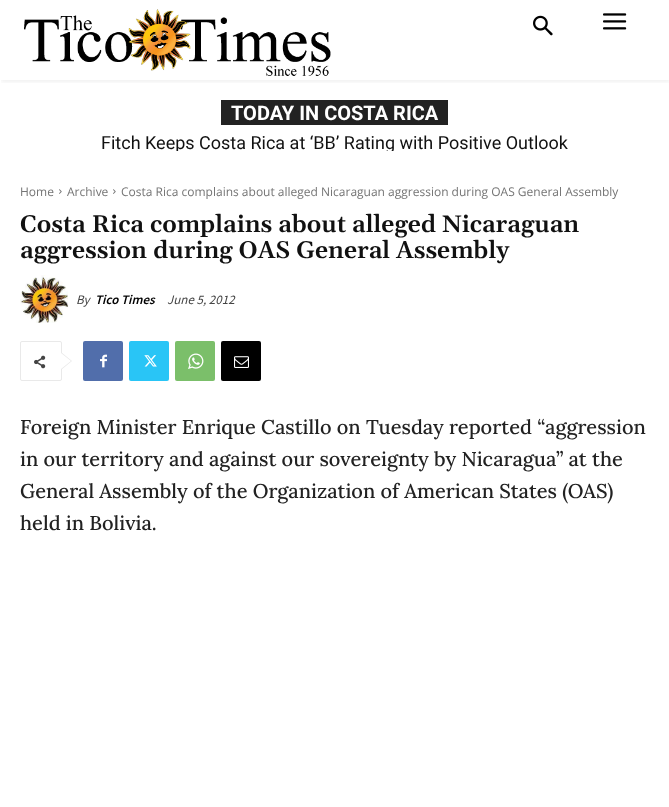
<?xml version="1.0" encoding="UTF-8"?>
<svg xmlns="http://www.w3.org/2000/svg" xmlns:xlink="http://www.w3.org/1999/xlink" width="669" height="807">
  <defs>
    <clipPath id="clip1"><rect x="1" y="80" width="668" height="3" /></clipPath>
    <clipPath id="clip2"><rect x="20" y="135" width="629" height="16" /></clipPath>
  </defs>
  <rect width="100%" height="100%" fill="#ffffff" />
  <image x="24" y="9" width="307" height="67" xlink:href="image1.png" />
  <image x="533" y="15" width="20" height="21" xlink:href="image2.png" />
  <image x="603" y="13" width="24" height="17" xlink:href="image3.png" />
  <g clip-path="url(#clip1)">
    <rect x="1" y="2" width="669" height="80" fill="#000000" fill-opacity="0.06" filter="blur(2px)" />
  </g>
  <rect x="221" y="100" width="227" height="25" fill="#222222" />
  <image x="59" y="189" width="3" height="5" xlink:href="image4.png" />
  <image x="113" y="189" width="3" height="5" xlink:href="image4.png" />
  <image x="20" y="275" width="49" height="48" xlink:href="image5.png" />
  <rect x="20.5" y="341.5" width="41" height="39" rx="1.5" fill="none" stroke="#e9e9e9" />
  <path d="M 61 370 v -18 l 11 9 z" fill="#e9e9e9" />
  <image x="34" y="355" width="12" height="14" xlink:href="image6.png" />
  <path d="M 61 369 v -16 l 10 8 z" fill="#ffffff" />
  <rect x="83" y="341" width="40" height="40" rx="2" fill="#516eab" />
  <image x="100" y="354" width="7" height="14" xlink:href="image7.png" />
  <rect x="129" y="341" width="40" height="40" rx="2" fill="#29c5f6" />
  <image x="144" y="355" width="13" height="12" xlink:href="image8.png" />
  <rect x="175" y="341" width="40" height="40" rx="2" fill="#7bbf6a" />
  <image x="188" y="353" width="16" height="16" xlink:href="image9.png" />
  <rect x="221" y="341" width="40" height="40" rx="2" fill="#000000" />
  <image x="234" y="356" width="15" height="12" xlink:href="image10.png" />
  <text x="231" y="120" style="font-family: Roboto; font-size: 20px; font-weight: bold; fill: #ffffff">TODAY IN COSTA RICA</text>
  <g clip-path="url(#clip2)">
    <text x="101" y="149" style="font-family: Roboto; font-size: 18px; fill: #111111">Fitch Keeps Costa Rica at ‘BB’ Rating with Positive Outlook</text>
  </g>
  <text x="20" y="196" style="font-family: Open Sans; font-size: 12px; fill: #747474">Home</text>
  <text x="67" y="196" style="font-family: Open Sans; font-size: 12px; fill: #747474">Archive</text>
  <text x="121" y="196" style="font-family: Open Sans; font-size: 12px; fill: #747474">Costa Rica complains about alleged Nicaraguan aggression during OAS General Assembly</text>
  <text x="20" y="232" style="font-family: Gelasio; font-size: 24px; font-weight: 600; fill: #111111">Costa Rica complains about alleged Nicaraguan</text>
  <text x="20" y="258" style="font-family: Gelasio; font-size: 24px; font-weight: 600; fill: #111111">aggression during OAS General Assembly</text>
  <text x="76" y="304" style="font-family: Source Sans Pro; font-size: 13px; font-style: italic; fill: #444444">By</text>
  <text x="95" y="304" style="font-family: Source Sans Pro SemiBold; font-size: 13px; font-weight: 600; font-style: italic; fill: #000000">Tico Times</text>
  <text x="167" y="304" style="font-family: Source Sans Pro; font-size: 13px; font-style: italic; fill: #444444">June 5, 2012</text>
  <text x="20" y="434" style="font-family: Lora; font-size: 20px; font-weight: 500; fill: #222222">Foreign Minister Enrique Castillo on Tuesday reported “aggression</text>
  <text x="20" y="466" style="font-family: Lora; font-size: 20px; font-weight: 500; fill: #222222">in our territory and against our sovereignty by Nicaragua” at the</text>
  <text x="20" y="498" style="font-family: Lora; font-size: 20px; font-weight: 500; fill: #222222">General Assembly of the Organization of American States (OAS)</text>
  <text x="20" y="530" style="font-family: Lora; font-size: 20px; font-weight: 500; fill: #222222">held in Bolivia.</text>
</svg>
